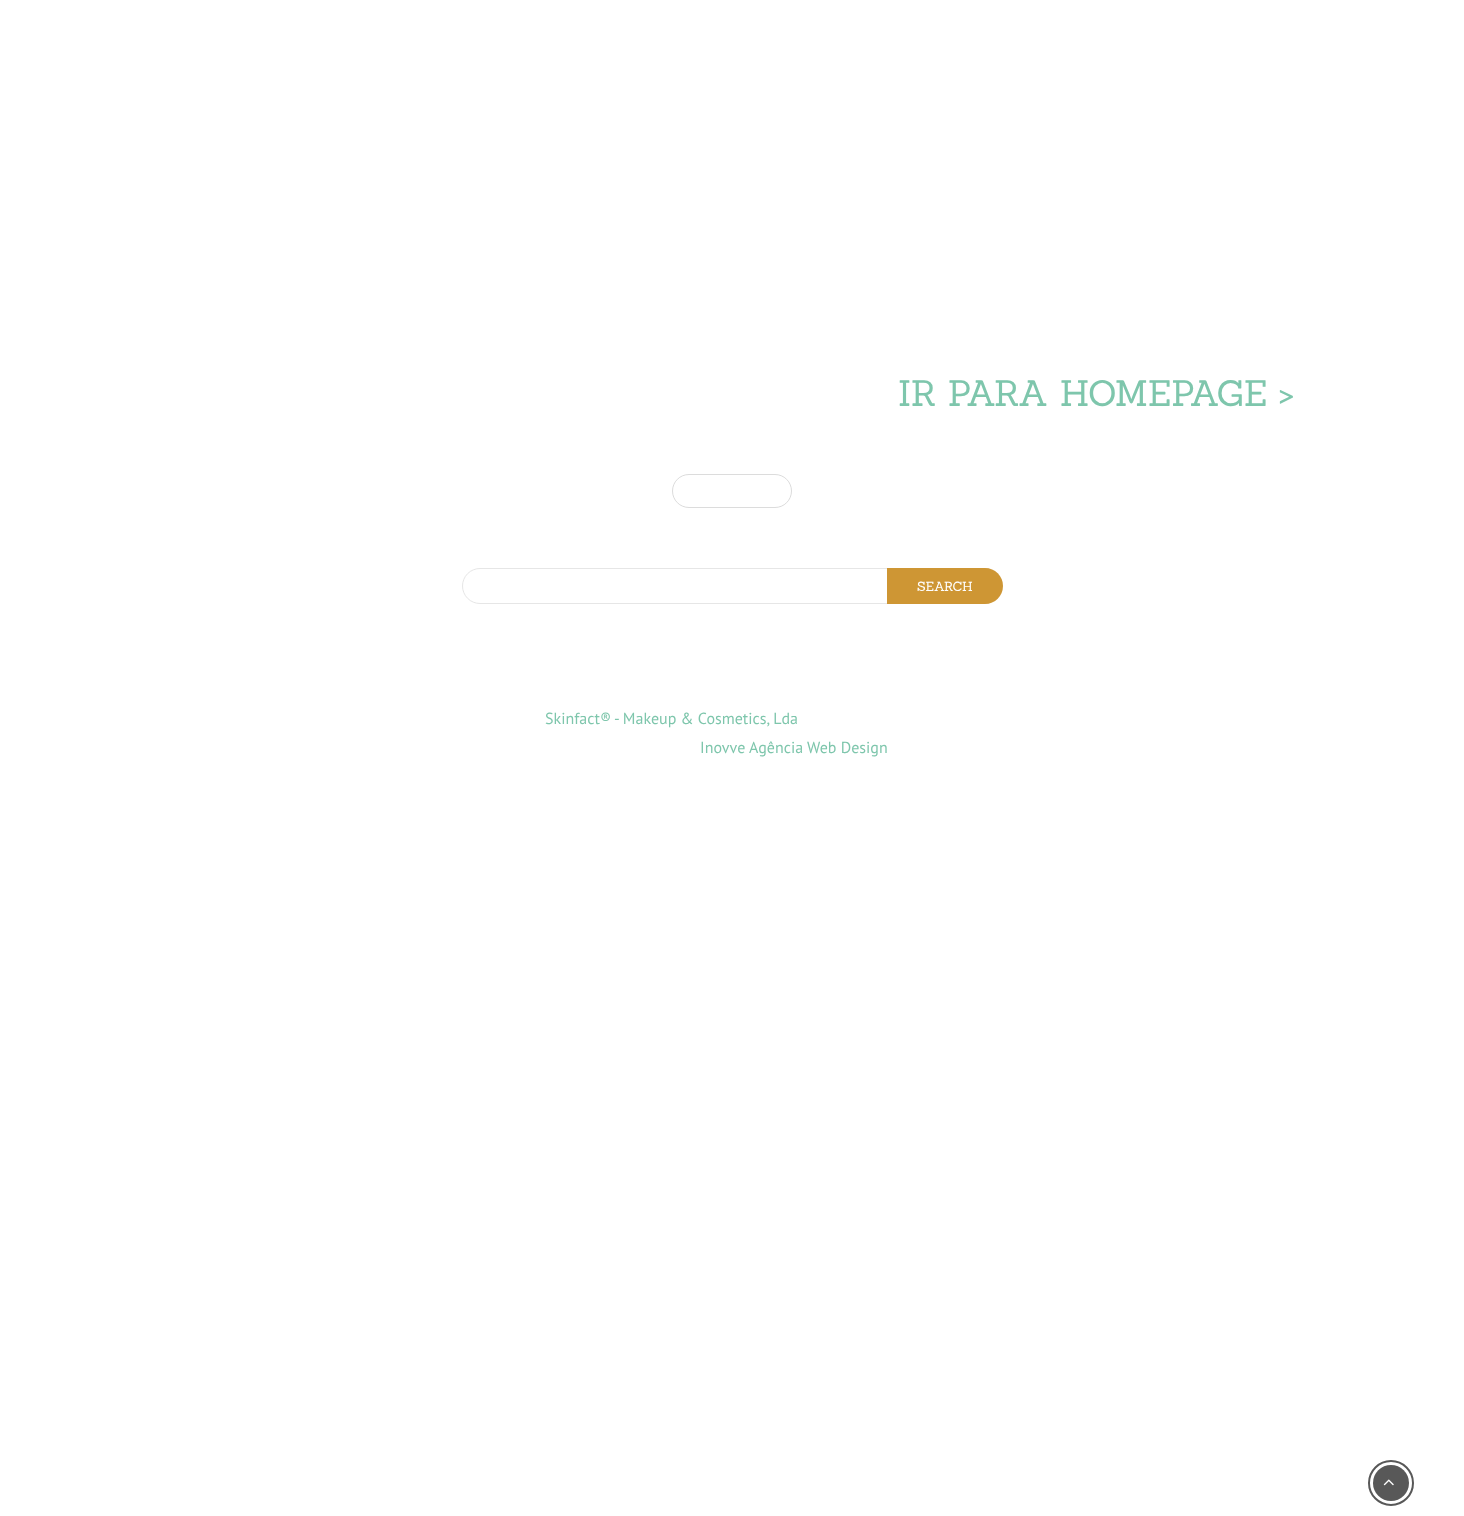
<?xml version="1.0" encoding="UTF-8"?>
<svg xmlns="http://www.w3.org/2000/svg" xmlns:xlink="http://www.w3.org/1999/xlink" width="1464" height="1516">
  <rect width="100%" height="100%" fill="#ffffff" />
  <rect x="672.5" y="474.5" width="119" height="33" rx="16.5" fill="none" stroke="#dcdcdc" />
  <rect x="462.5" y="568.5" width="539" height="35" rx="17.5" fill="none" stroke="#e6e6e6" />
  <path d="M 887 568 h 98 c 10 0 18 8 18 18 c 0 10 -8 18 -18 18 h -98 z" fill="#ce9634" />
  <circle cx="1391" cy="1483" r="22" fill="none" stroke="#585858" stroke-width="2" />
  <circle cx="1391" cy="1483" r="18" fill="#585858" />
  <image x="1383" y="1479" width="11" height="7" xlink:href="image1.png" />
  <text x="898" y="406" style="font-family: Sanchez; font-size: 36px; fill: #7ec6ac">IR PARA HOMEPAGE &gt;</text>
  <text x="917" y="591" style="font-family: Sanchez; font-size: 13px; fill: #ffffff">SEARCH</text>
  <text x="545" y="724" style="font-family: PT Sans; font-size: 16px; fill: #7ec6ac">Skinfact® - Makeup &amp; Cosmetics, Lda</text>
  <text x="700" y="753" style="font-family: PT Sans; font-size: 16px; fill: #7ec6ac">Inovve Agência Web Design</text>
</svg>
